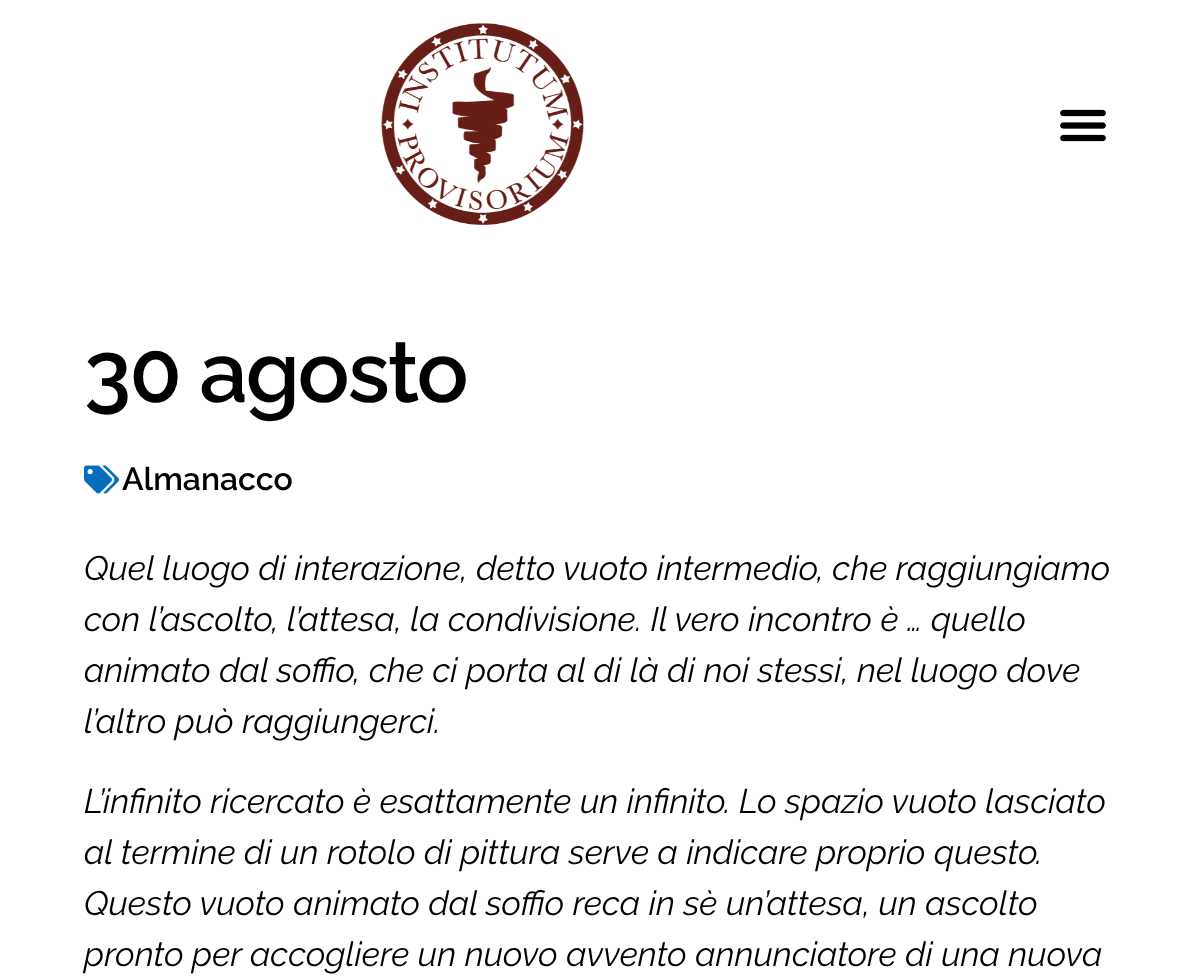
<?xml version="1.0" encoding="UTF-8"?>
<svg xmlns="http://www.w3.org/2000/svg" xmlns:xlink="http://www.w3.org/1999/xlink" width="1201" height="980">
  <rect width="100%" height="100%" fill="#ffffff" />
  <image x="381" y="23" width="203" height="202" xlink:href="image1.png" />
  <image x="1060" y="109" width="46" height="33" xlink:href="image2.png" />
  <image x="84" y="465" width="35" height="29" xlink:href="image3.png" />
  <text x="84" y="402" style="font-family: Raleway; font-size: 86px; font-weight: 600; letter-spacing: -2px; fill: #000000">30 agosto</text>
  <text x="122" y="490" style="font-family: Raleway; font-size: 32px; font-weight: 600; fill: #000000">Almanacco</text>
  <text x="84" y="580" style="font-family: Raleway; font-size: 34px; font-style: italic; fill: #000000">Quel luogo di interazione, detto vuoto intermedio, che raggiungiamo</text>
  <text x="84" y="631" style="font-family: Raleway; font-size: 34px; font-style: italic; fill: #000000">con l’ascolto, l’attesa, la condivisione. Il vero incontro è … quello</text>
  <text x="84" y="682" style="font-family: Raleway; font-size: 34px; font-style: italic; fill: #000000">animato dal soffio, che ci porta al di là di noi stessi, nel luogo dove</text>
  <text x="84" y="733" style="font-family: Raleway; font-size: 34px; font-style: italic; fill: #000000">l’altro può raggiungerci.</text>
  <text x="84" y="813" style="font-family: Raleway; font-size: 34px; font-style: italic; fill: #000000">L’infinito ricercato è esattamente un infinito. Lo spazio vuoto lasciato</text>
  <text x="84" y="864" style="font-family: Raleway; font-size: 34px; font-style: italic; fill: #000000">al termine di un rotolo di pittura serve a indicare proprio questo.</text>
  <text x="84" y="915" style="font-family: Raleway; font-size: 34px; font-style: italic; fill: #000000">Questo vuoto animato dal soffio reca in sè un’attesa, un ascolto</text>
  <text x="84" y="966" style="font-family: Raleway; font-size: 34px; font-style: italic; fill: #000000">pronto per accogliere un nuovo avvento annunciatore di una nuova</text>
</svg>
